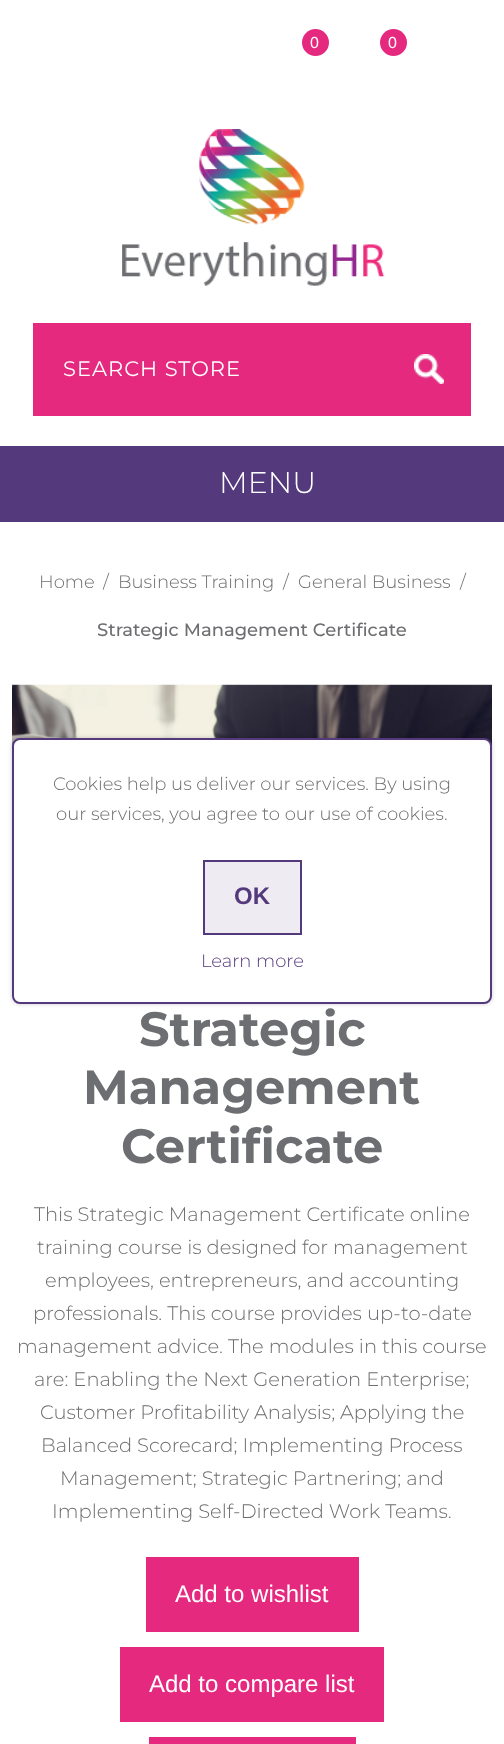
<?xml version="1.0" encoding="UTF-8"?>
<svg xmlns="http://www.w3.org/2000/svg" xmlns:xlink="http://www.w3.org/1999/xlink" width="504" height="1744">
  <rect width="100%" height="100%" fill="#ffffff" />
  <circle cx="315.5" cy="42.5" r="13.5" fill="#e4297f" />
  <circle cx="393.5" cy="42.5" r="13.5" fill="#e4297f" />
  <image x="122" y="129" width="263" height="158" xlink:href="image1.png" />
  <rect x="33" y="323" width="438" height="93" fill="#e4297f" />
  <image x="414" y="354" width="30" height="30" xlink:href="image2.png" />
  <rect y="446" width="504" height="76" fill="#55397d" />
  <image x="12" y="684" width="480" height="62" xlink:href="image3.png" />
  <rect x="146" y="1557" width="213" height="75" fill="#e4297f" />
  <rect x="120" y="1647" width="264" height="75" fill="#e4297f" />
  <rect x="149" y="1737" width="207" height="7" fill="#e4297f" />
  <rect x="12" y="738" width="480" height="266" rx="8" fill="#000000" fill-opacity="0.2" filter="blur(2px)" />
  <rect x="13" y="739" width="478" height="264" rx="7" fill="#ffffff" stroke="#55397d" stroke-width="2" />
  <rect x="204" y="861" width="97" height="73" fill="#eeebf2" stroke="#55397d" stroke-width="2" />
  <text x="310" y="48" style="font-family: Liberation Sans; font-size: 16px; fill: #ffffff">0</text>
  <text x="388" y="48" style="font-family: Liberation Sans; font-size: 16px; fill: #ffffff">0</text>
  <text x="63" y="376" style="font-family: Montserrat; font-size: 21px; letter-spacing: 1px; fill: #ffffff">SEARCH STORE</text>
  <text x="219" y="493" style="font-family: Montserrat; font-size: 30px; font-weight: 300; fill: #ffffff">MENU</text>
  <text x="39" y="588" style="font-family: Montserrat; font-size: 18px; font-weight: 300; fill: #6d6e71">Home</text>
  <text x="103" y="588" style="font-family: Montserrat; font-size: 18px; font-weight: 300; fill: #6d6e71">/</text>
  <text x="118" y="588" style="font-family: Montserrat; font-size: 18px; font-weight: 300; fill: #6d6e71">Business Training</text>
  <text x="283" y="588" style="font-family: Montserrat; font-size: 18px; font-weight: 300; fill: #6d6e71">/</text>
  <text x="298" y="588" style="font-family: Montserrat; font-size: 18px; font-weight: 300; fill: #6d6e71">General Business</text>
  <text x="460" y="588" style="font-family: Montserrat; font-size: 18px; font-weight: 300; fill: #6d6e71">/</text>
  <text x="97" y="636" style="font-family: Montserrat; font-size: 18px; font-weight: 500; fill: #6d6e71">Strategic Management Certificate</text>
  <text x="139" y="1046" style="font-family: Montserrat; font-size: 48px; font-weight: bold; fill: #6d6e71">Strategic</text>
  <text x="83" y="1104" style="font-family: Montserrat; font-size: 48px; font-weight: bold; fill: #6d6e71">Management</text>
  <text x="121" y="1163" style="font-family: Montserrat; font-size: 48px; font-weight: bold; fill: #6d6e71">Certificate</text>
  <text x="34" y="1221" style="font-family: Montserrat; font-size: 19.5px; font-weight: 300; fill: #6d6e71">This Strategic Management Certificate online</text>
  <text x="37" y="1254" style="font-family: Montserrat; font-size: 19.5px; font-weight: 300; fill: #6d6e71">training course is designed for management</text>
  <text x="45" y="1287" style="font-family: Montserrat; font-size: 19.5px; font-weight: 300; fill: #6d6e71">employees, entrepreneurs, and accounting</text>
  <text x="33" y="1320" style="font-family: Montserrat; font-size: 19.5px; font-weight: 300; fill: #6d6e71">professionals. This course provides up-to-date</text>
  <text x="17" y="1353" style="font-family: Montserrat; font-size: 19.5px; font-weight: 300; fill: #6d6e71">management advice. The modules in this course</text>
  <text x="34" y="1386" style="font-family: Montserrat; font-size: 19.5px; font-weight: 300; fill: #6d6e71">are: Enabling the Next Generation Enterprise;</text>
  <text x="40" y="1419" style="font-family: Montserrat; font-size: 19.5px; font-weight: 300; fill: #6d6e71">Customer Profitability Analysis; Applying the</text>
  <text x="41" y="1452" style="font-family: Montserrat; font-size: 19.5px; font-weight: 300; fill: #6d6e71">Balanced Scorecard; Implementing Process</text>
  <text x="60" y="1485" style="font-family: Montserrat; font-size: 19.5px; font-weight: 300; fill: #6d6e71">Management; Strategic Partnering; and</text>
  <text x="52" y="1518" style="font-family: Montserrat; font-size: 19.5px; font-weight: 300; fill: #6d6e71">Implementing Self-Directed Work Teams.</text>
  <text x="175" y="1602" style="font-family: Liberation Sans; font-size: 24px; fill: #ffffff">Add to wishlist</text>
  <text x="149" y="1692" style="font-family: Liberation Sans; font-size: 24px; fill: #ffffff">Add to compare list</text>
  <text x="53" y="790" style="font-family: Montserrat; font-size: 18px; font-weight: 300; fill: #6d6e71">Cookies help us deliver our services. By using</text>
  <text x="56" y="820" style="font-family: Montserrat; font-size: 18px; font-weight: 300; fill: #6d6e71">our services, you agree to our use of cookies.</text>
  <text x="234" y="904" style="font-family: Liberation Sans; font-size: 24px; font-weight: bold; fill: #55397d">OK</text>
  <text x="201" y="967" style="font-family: Montserrat; font-size: 18px; font-weight: 300; fill: #55397d">Learn more</text>
</svg>
